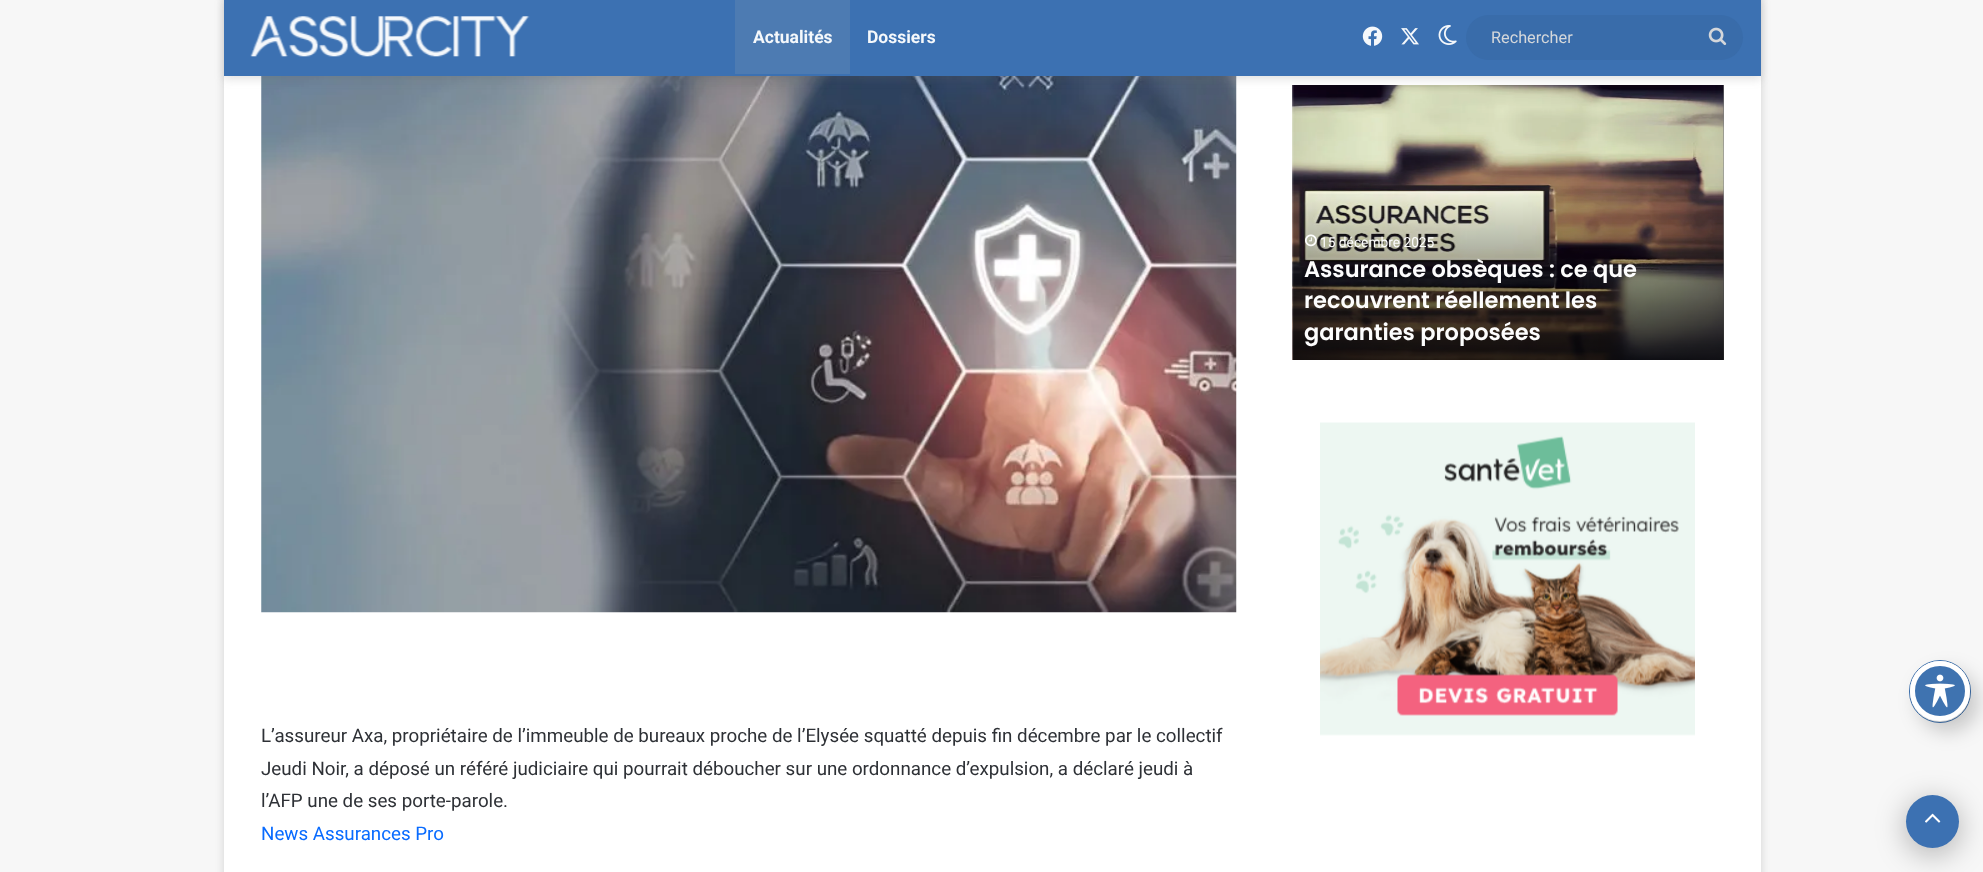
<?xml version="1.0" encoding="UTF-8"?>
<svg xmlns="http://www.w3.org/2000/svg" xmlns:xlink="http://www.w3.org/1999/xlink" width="1983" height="872">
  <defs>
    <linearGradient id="g1" gradientUnits="userSpaceOnUse" x1="1508" y1="181" x2="1508" y2="360"><stop offset="0" stop-color="#000000" stop-opacity="0" /><stop offset="1" stop-color="#000000" stop-opacity="0.74" /></linearGradient>
  </defs>
  <rect width="100%" height="100%" fill="#f7f7f7" />
  <rect x="224" y="-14" width="1537" height="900" fill="#ababab" fill-opacity="0.5" filter="blur(4.5px)" />
  <rect x="224" y="76" width="1537" height="796" fill="#ffffff" />
  <image x="1292" y="85" width="432" height="275" xlink:href="image6.png" />
  <image x="1723" y="85" width="1" height="275" xlink:href="image8.png" />
  <image x="261" y="76" width="976" height="537" xlink:href="image10.png" />
  <rect x="224" y="1" width="1537" height="78" fill="#636363" fill-opacity="0.2" filter="blur(5px)" />
  <rect x="224" width="1537" height="76" fill="#3c71b2" />
  <image x="250" y="16" width="280" height="41" xlink:href="image1.png" />
  <rect x="735" width="115" height="74" fill="#4d7bb2" />
  <image x="1362" y="26" width="21" height="20" xlink:href="image2.png" />
  <image x="1401" y="28" width="18" height="17" xlink:href="image3.png" />
  <image x="1438" y="25" width="19" height="20" xlink:href="image4.png" />
  <rect x="1466" y="15" width="277" height="45" rx="22.5" fill="#396caa" />
  <image x="1708" y="27" width="19" height="19" xlink:href="image5.png" />
  <rect x="1293" y="186" width="431" height="174" fill="url(#g1)" />
  <image x="1305" y="234" width="12" height="13" xlink:href="image7.png" />
  <image x="1320" y="422" width="375" height="314" xlink:href="image9.png" />
  <rect x="1906" y="801" width="53" height="53" rx="26.5" fill="#000000" fill-opacity="0.3" filter="blur(15.5px)" />
  <circle cx="1932.5" cy="821.5" r="26.5" fill="#3c71b2" />
  <image x="1925" y="813" width="16" height="10" xlink:href="image11.png" />
  <rect x="1909.5" y="660.5" width="61" height="62" rx="30.5" fill="none" stroke="#3f73b0" />
  <rect x="1918" y="671" width="60" height="60" rx="30" fill="#000000" fill-opacity="0.2" filter="blur(10px)" />
  <circle cx="1940" cy="691" r="27.5" fill="#3f73b0" stroke="#ffffff" stroke-width="5" />
  <image x="1925" y="674" width="30" height="34" xlink:href="image12.png" />
  <text x="753" y="43" style="font-family: Roboto; font-size: 17.5px; font-weight: bold; fill: #f5f8fb">Actualités</text>
  <text x="867" y="43" style="font-family: Roboto; font-size: 17.5px; font-weight: bold; fill: #f5f8fb">Dossiers</text>
  <text x="1491" y="43" style="font-family: Roboto; font-size: 16.25px; fill: #d5d8db">Rechercher</text>
  <text x="1320" y="247" style="font-family: Roboto; font-size: 13.75px; fill: #fdfdfd">15 décembre 2025</text>
  <text x="1304" y="277" style="font-family: Poppins; font-size: 22.5px; font-weight: 600; fill: #fdfdfd">Assurance obsèques : ce que</text>
  <text x="1304" y="308" style="font-family: Poppins; font-size: 22.5px; font-weight: 600; fill: #fdfdfd">recouvrent réellement les</text>
  <text x="1304" y="340" style="font-family: Poppins; font-size: 22.5px; font-weight: 600; fill: #fdfdfd">garanties proposées</text>
  <text x="261" y="742" style="font-family: Roboto; font-size: 18.75px; fill: #2e3136">L’assureur Axa, propriétaire de l’immeuble de bureaux proche de l’Elysée squatté depuis fin décembre par le collectif</text>
  <text x="261" y="775" style="font-family: Roboto; font-size: 18.75px; fill: #2e3136">Jeudi Noir, a déposé un référé judiciaire qui pourrait déboucher sur une ordonnance d’expulsion, a déclaré jeudi à</text>
  <text x="261" y="807" style="font-family: Roboto; font-size: 18.75px; fill: #2e3136">l’AFP une de ses porte-parole.</text>
  <text x="261" y="840" style="font-family: Roboto; font-size: 18.75px; fill: #086bff">News Assurances Pro</text>
</svg>
